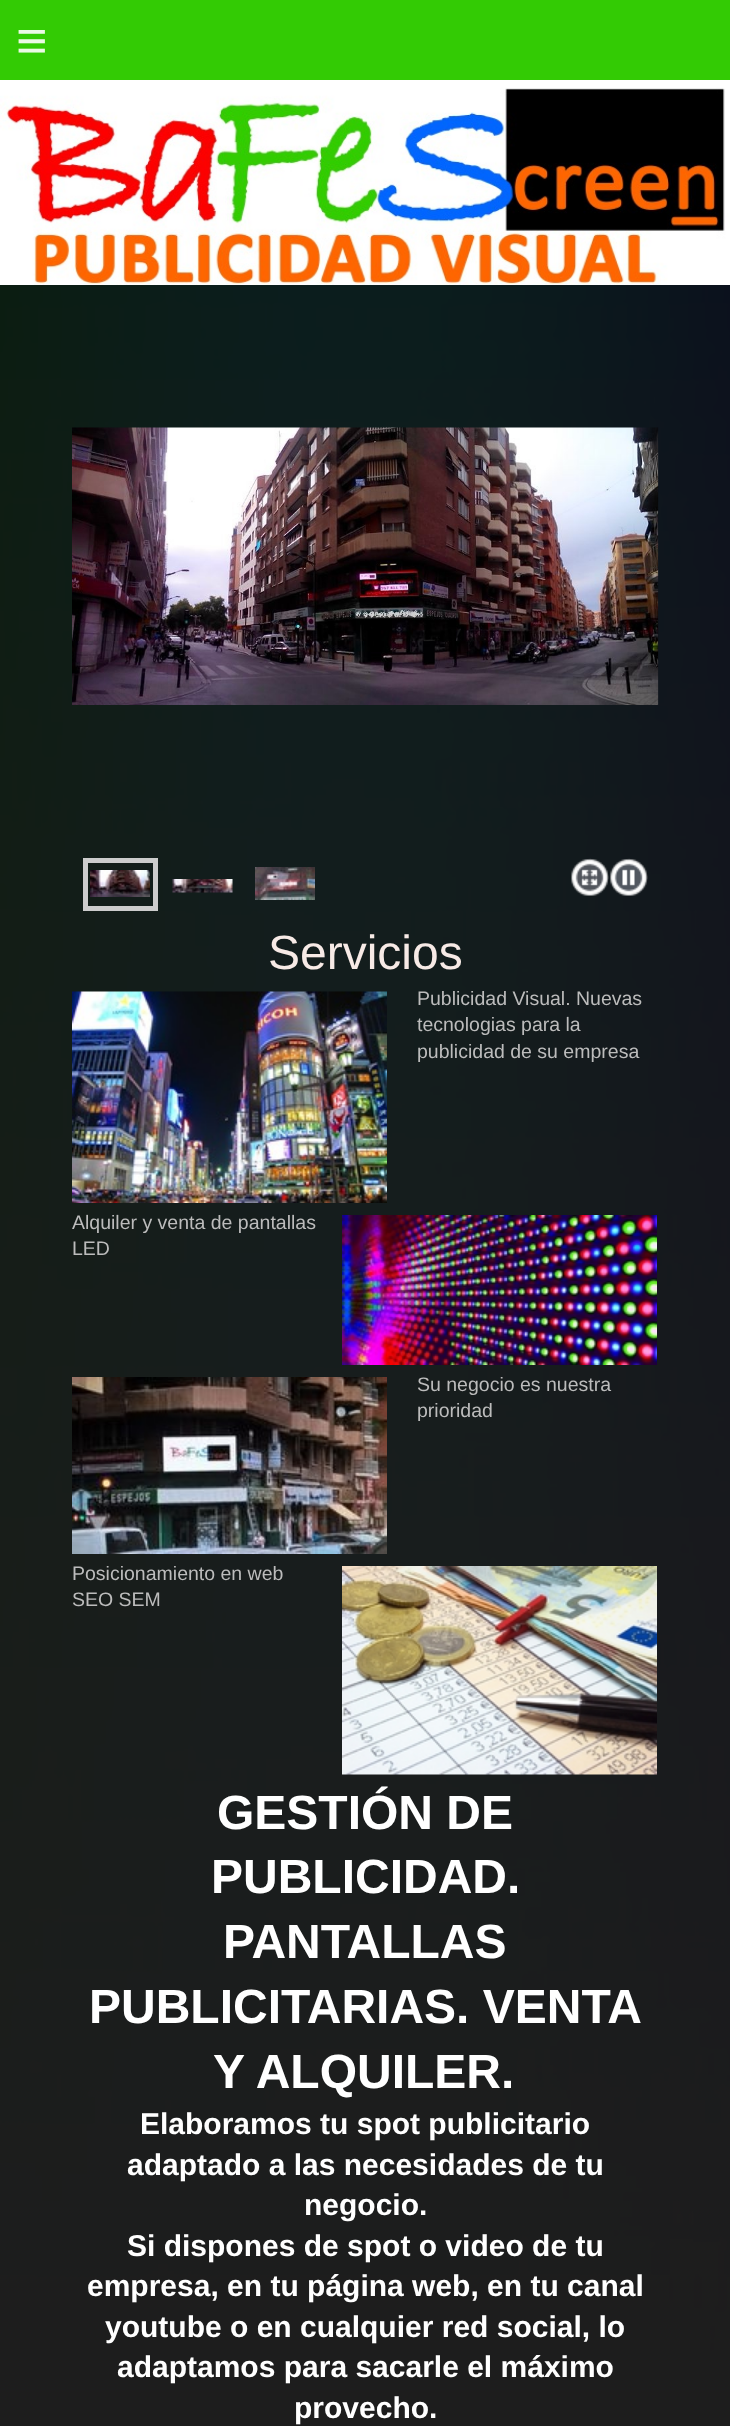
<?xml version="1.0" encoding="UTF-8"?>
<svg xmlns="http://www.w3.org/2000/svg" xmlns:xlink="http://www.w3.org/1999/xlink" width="730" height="2426">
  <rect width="100%" height="100%" fill="#ffffff" />
  <image x="0" y="285" width="730" height="2106" xlink:href="image1.png" />
  <rect width="730" height="80" fill="#33cb04" />
  <image x="0" y="80" width="730" height="205" xlink:href="image2.png" />
  <rect y="285" width="730" height="2141" fill="#040404" fill-opacity="0.9" />
  <image x="72" y="427" width="587" height="278" xlink:href="image3.png" />
  <rect x="85.5" y="860.5" width="70" height="48" fill="none" stroke="#cccccc" stroke-width="5" />
  <image x="90" y="870" width="60" height="27" xlink:href="image4.png" />
  <image x="172" y="879" width="61" height="14" xlink:href="image5.png" />
  <image x="255" y="867" width="60" height="33" xlink:href="image6.png" />
  <image x="571" y="858" width="38" height="38" xlink:href="image7.png" />
  <image x="610" y="858" width="38" height="38" xlink:href="image8.png" />
  <image x="72" y="991" width="315" height="212" xlink:href="image9.png" />
  <image x="342" y="1215" width="315" height="150" xlink:href="image10.png" />
  <image x="72" y="1377" width="315" height="177" xlink:href="image11.png" />
  <image x="342" y="1566" width="315" height="209" xlink:href="image12.png" />
  <text x="16" y="59" style="font-family: Liberation Sans; font-size: 54px; letter-spacing: 16px; fill: #ebfae6">≡</text>
  <text x="268" y="969" style="font-family: Liberation Sans; font-size: 48px; fill: #f7eae6">Servicios</text>
  <text x="417" y="1005" style="font-family: Liberation Sans; font-size: 19.5px; fill: #bcbcbc">Publicidad Visual. Nuevas</text>
  <text x="417" y="1031" style="font-family: Liberation Sans; font-size: 19.5px; fill: #bcbcbc">tecnologias para la</text>
  <text x="417" y="1058" style="font-family: Liberation Sans; font-size: 19.5px; fill: #bcbcbc">publicidad de su empresa</text>
  <text x="72" y="1229" style="font-family: Liberation Sans; font-size: 19.5px; fill: #bcbcbc">Alquiler y venta de pantallas</text>
  <text x="72" y="1255" style="font-family: Liberation Sans; font-size: 19.5px; fill: #bcbcbc">LED</text>
  <text x="417" y="1391" style="font-family: Liberation Sans; font-size: 19.5px; fill: #bcbcbc">Su negocio es nuestra</text>
  <text x="417" y="1417" style="font-family: Liberation Sans; font-size: 19.5px; fill: #bcbcbc">prioridad</text>
  <text x="72" y="1580" style="font-family: Liberation Sans; font-size: 19.5px; fill: #bcbcbc">Posicionamiento en web</text>
  <text x="72" y="1606" style="font-family: Liberation Sans; font-size: 19.5px; fill: #bcbcbc">SEO SEM</text>
  <text x="217" y="1829" style="font-family: Liberation Sans; font-size: 48px; font-weight: bold; fill: #ffffff">GESTIÓN DE</text>
  <text x="211" y="1893" style="font-family: Liberation Sans; font-size: 48px; font-weight: bold; fill: #ffffff">PUBLICIDAD.</text>
  <text x="223" y="1958" style="font-family: Liberation Sans; font-size: 48px; font-weight: bold; fill: #ffffff">PANTALLAS</text>
  <text x="89" y="2023" style="font-family: Liberation Sans; font-size: 48px; font-weight: bold; fill: #ffffff">PUBLICITARIAS. VENTA</text>
  <text x="213" y="2088" style="font-family: Liberation Sans; font-size: 48px; font-weight: bold; fill: #ffffff">Y ALQUILER.</text>
  <text x="140" y="2134" style="font-family: Liberation Sans; font-size: 30px; font-weight: bold; fill: #ffffff">Elaboramos tu spot publicitario</text>
  <text x="127" y="2175" style="font-family: Liberation Sans; font-size: 30px; font-weight: bold; fill: #ffffff">adaptado a las necesidades de tu</text>
  <text x="304" y="2215" style="font-family: Liberation Sans; font-size: 30px; font-weight: bold; fill: #ffffff">negocio.</text>
  <text x="127" y="2256" style="font-family: Liberation Sans; font-size: 30px; font-weight: bold; fill: #ffffff">Si dispones de spot o video de tu</text>
  <text x="87" y="2296" style="font-family: Liberation Sans; font-size: 30px; font-weight: bold; fill: #ffffff">empresa, en tu página web, en tu canal</text>
  <text x="105" y="2337" style="font-family: Liberation Sans; font-size: 30px; font-weight: bold; fill: #ffffff">youtube o en cualquier red social, lo</text>
  <text x="117" y="2377" style="font-family: Liberation Sans; font-size: 30px; font-weight: bold; fill: #ffffff">adaptamos para sacarle el máximo</text>
  <text x="294" y="2418" style="font-family: Liberation Sans; font-size: 30px; font-weight: bold; fill: #ffffff">provecho.</text>
</svg>
